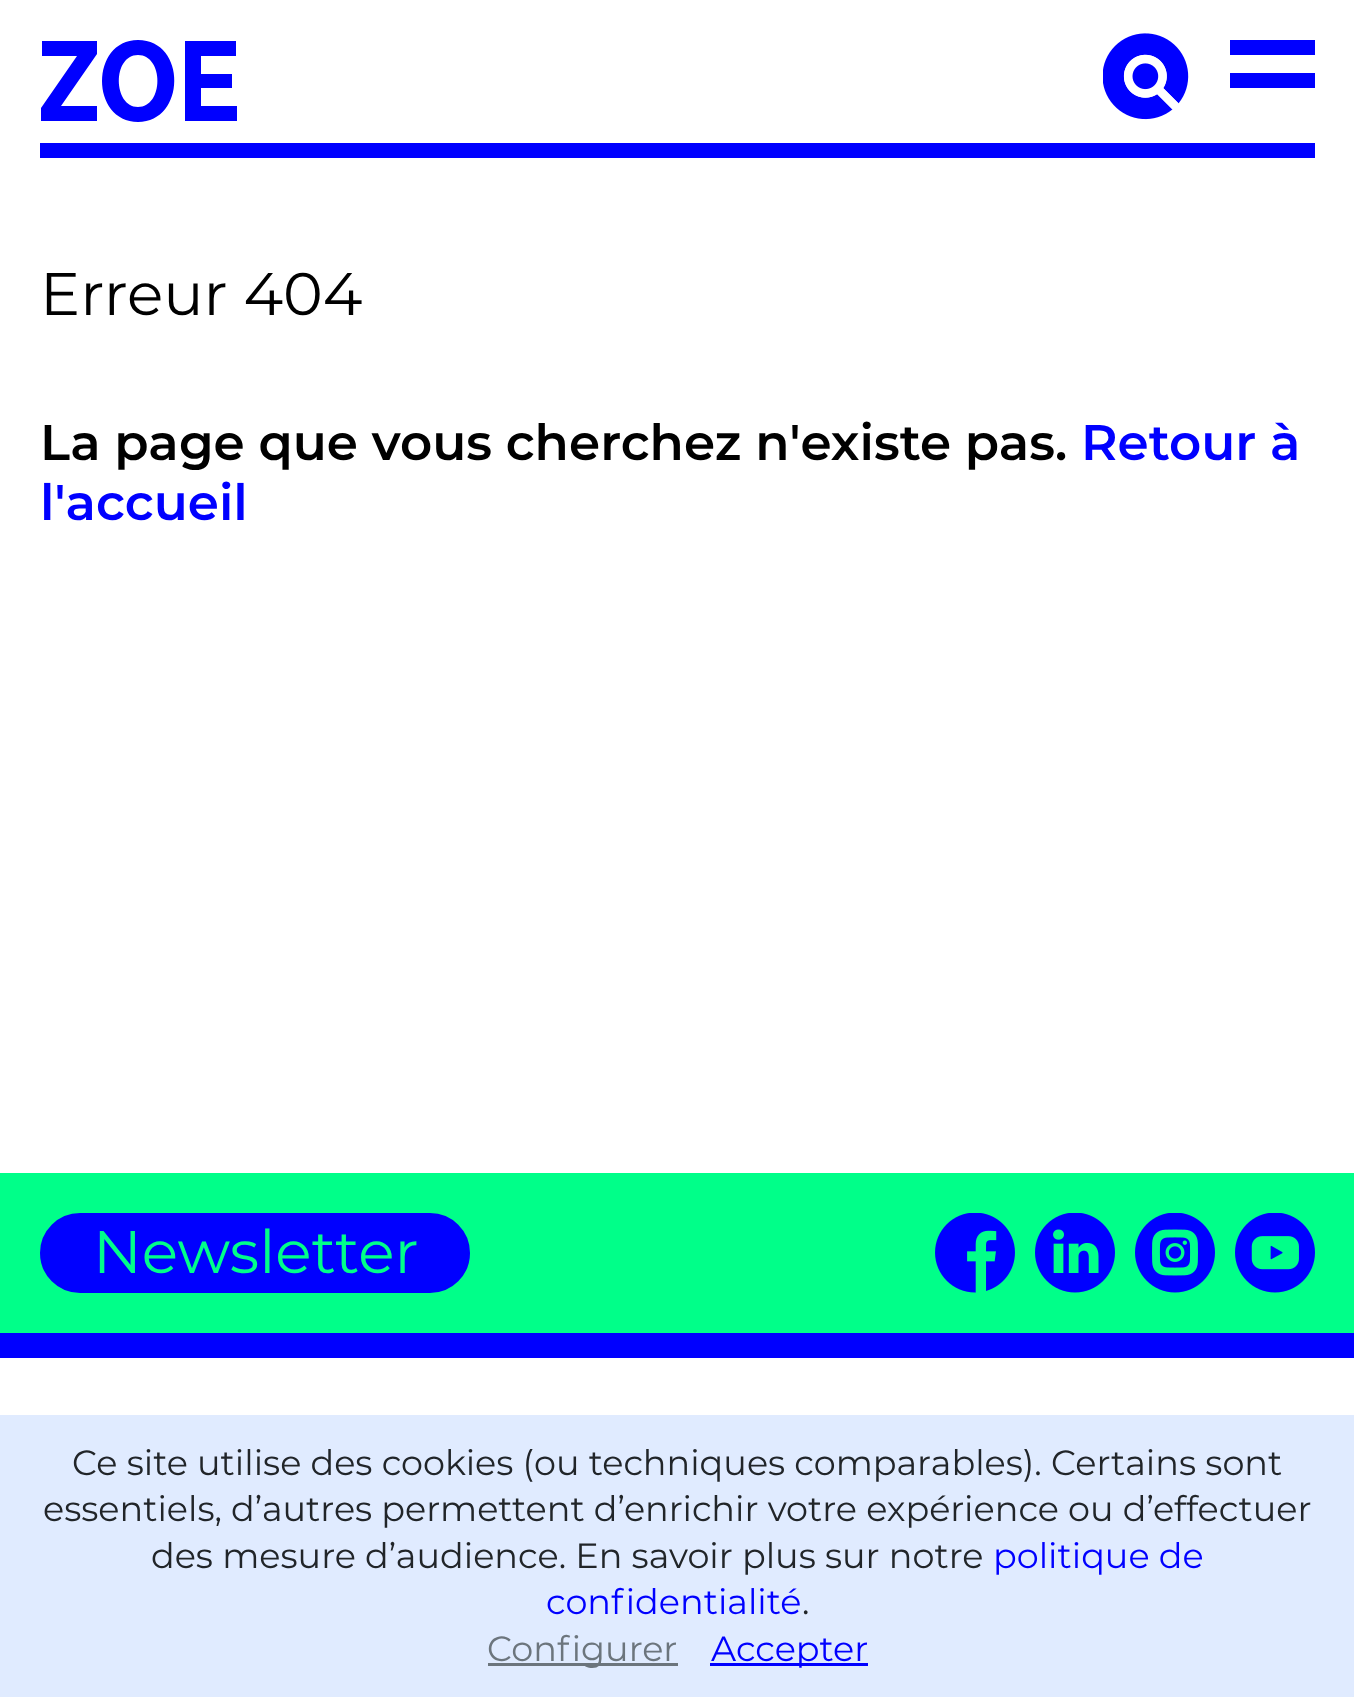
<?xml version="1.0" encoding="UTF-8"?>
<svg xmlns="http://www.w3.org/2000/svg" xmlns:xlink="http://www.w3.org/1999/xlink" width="1354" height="1697">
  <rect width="100%" height="100%" fill="#ffffff" />
  <image x="1103" y="33" width="86" height="87" xlink:href="image1.png" />
  <path d="M 41 121 h 56 v -15 h -36 l 36 -52 v -13 h -55 v 15 h 35 l -36 52 z m 97 1 c 48 0 49 -82 0 -82 c -48 0 -48 82 0 82 m 0 -15 c -25 0 -26 -52 0 -52 c 26 0 26 52 0 52 m 47 14 h 52 v -15 h -36 v -18 h 31 v -14 h -31 v -18 h 35 v -15 h -51 z" fill="#0000ff" />
  <rect x="40" y="143" width="1275" height="15" fill="#0000ff" />
  <rect x="1230" y="40" width="85" height="15" fill="#0000ff" />
  <rect x="1230" y="73" width="85" height="15" fill="#0000ff" />
  <rect y="1173" width="1354" height="160" fill="#00ff89" />
  <rect x="41.5" y="1214.5" width="427" height="77" rx="38.5" fill="#0000ff" stroke="#0000ff" stroke-width="3" />
  <image x="935" y="1213" width="80" height="80" xlink:href="image2.png" />
  <image x="1035" y="1213" width="80" height="80" xlink:href="image3.png" />
  <image x="1135" y="1213" width="80" height="80" xlink:href="image4.png" />
  <image x="1235" y="1213" width="80" height="80" xlink:href="image5.png" />
  <rect y="1333" width="1354" height="25" fill="#0000ff" />
  <rect y="1415" width="1354" height="282" fill="#e0ebff" />
  <rect x="488" y="1663" width="190" height="3" fill="#6c757d" />
  <rect x="710" y="1663" width="158" height="3" fill="#0000ff" />
  <text x="40" y="315" style="font-family: Montserrat; font-size: 60px; fill: #000000">Erreur 404</text>
  <text x="40" y="460" style="font-family: Montserrat; font-size: 50px; font-weight: 600; fill: #000000">La page que vous cherchez n'existe pas.</text>
  <text x="1081" y="460" style="font-family: Montserrat; font-size: 50px; font-weight: 600; fill: #0000ff">Retour à</text>
  <text x="40" y="520" style="font-family: Montserrat; font-size: 50px; font-weight: 600; fill: #0000ff">l'accueil</text>
  <text x="93" y="1273" style="font-family: Montserrat; font-size: 60px; fill: #00ff89">Newsletter</text>
  <text x="72" y="1475" style="font-family: Montserrat; font-size: 35px; fill: #212529">Ce site utilise des cookies (ou techniques comparables). Certains sont</text>
  <text x="43" y="1521" style="font-family: Montserrat; font-size: 35px; fill: #212529">essentiels, d’autres permettent d’enrichir votre expérience ou d’effectuer</text>
  <text x="151" y="1568" style="font-family: Montserrat; font-size: 35px; fill: #212529">des mesure d’audience. En savoir plus sur notre</text>
  <text x="993" y="1568" style="font-family: Montserrat; font-size: 35px; fill: #0000ff">politique de</text>
  <text x="546" y="1614" style="font-family: Montserrat; font-size: 35px; fill: #0000ff">confidentialité</text>
  <text x="802" y="1614" style="font-family: Montserrat; font-size: 35px; fill: #212529">.</text>
  <text x="487" y="1661" style="font-family: Montserrat; font-size: 35px; fill: #6c757d">Configurer</text>
  <text x="711" y="1661" style="font-family: Montserrat; font-size: 35px; fill: #0000ff">Accepter</text>
</svg>
